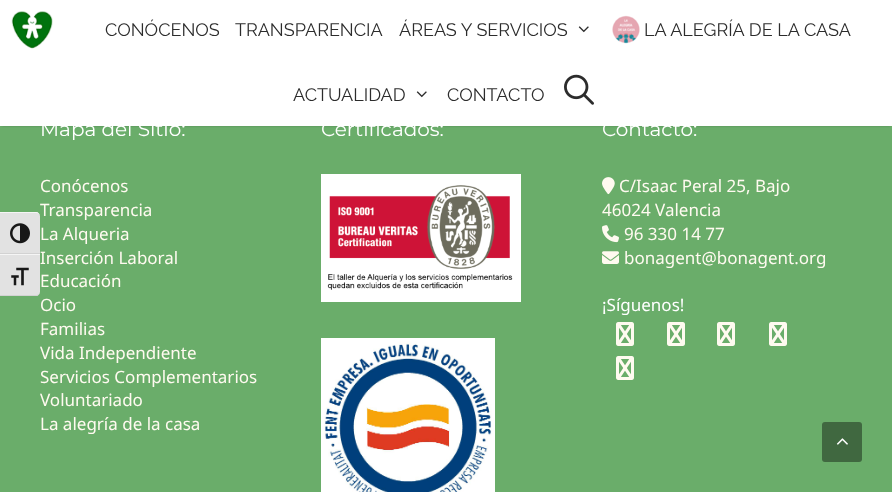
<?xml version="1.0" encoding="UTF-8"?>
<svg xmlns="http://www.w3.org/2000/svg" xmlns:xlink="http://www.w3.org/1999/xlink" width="892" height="492">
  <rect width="100%" height="100%" fill="#6aad6a" />
  <rect x="2" y="4" width="888" height="122" fill="#000000" fill-opacity="0.2" filter="blur(1px)" />
  <rect width="892" height="126" fill="#ffffff" />
  <image x="11" y="11" width="42" height="38" xlink:href="image1.png" />
  <image x="578" y="26" width="11" height="7" xlink:href="image2.png" />
  <image x="612" y="15" width="28" height="29" xlink:href="image3.png" />
  <image x="416" y="91" width="11" height="7" xlink:href="image2.png" />
  <image x="564" y="74" width="30" height="31" xlink:href="image4.png" />
  <path d="M 0 212 h 36 c 2 0 4 2 4 4 v 38 h -40 z" fill="#e2e2e2" />
  <path d="M 0 212 v 1 h 36 c 2 0 4 1 4 3 c 0 -2 -2 -4 -4 -4 z" fill="#f5f5f5" />
  <rect y="253" width="40" height="1" fill="#d2d2d2" />
  <image x="10" y="223" width="20" height="21" xlink:href="image5.png" />
  <path d="M 0 254 h 40 v 38 c 0 2 -2 4 -4 4 h -36 z" fill="#e2e2e2" />
  <rect y="254" width="40" height="1" fill="#f5f5f5" />
  <path d="M 0 295 v 1 h 36 c 2 0 4 -2 4 -4 c 0 2 -2 3 -4 3 z" fill="#d2d2d2" />
  <image x="11" y="267" width="18" height="19" xlink:href="image6.png" />
  <image x="321" y="174" width="200" height="128" xlink:href="image7.png" />
  <image x="321" y="338" width="174" height="154" xlink:href="image8.png" />
  <image x="602" y="177" width="13" height="18" xlink:href="image9.png" />
  <image x="602" y="225" width="17" height="18" xlink:href="image10.png" />
  <image x="602" y="251" width="17" height="13" xlink:href="image11.png" />
  <image x="616" y="322" width="18" height="24" xlink:href="image12.png" />
  <image x="667" y="322" width="18" height="24" xlink:href="image12.png" />
  <image x="717" y="322" width="18" height="24" xlink:href="image12.png" />
  <image x="769" y="322" width="18" height="24" xlink:href="image12.png" />
  <image x="616" y="356" width="18" height="24" xlink:href="image12.png" />
  <rect x="822" y="422" width="40" height="40" rx="3" fill="#406840" />
  <image x="836" y="438" width="12" height="7" xlink:href="image13.png" />
  <text x="105" y="36" style="font-family: Raleway; font-size: 18px; fill: #2c2c2c">CONÓCENOS</text>
  <text x="235" y="36" style="font-family: Raleway; font-size: 18px; fill: #2c2c2c">TRANSPARENCIA</text>
  <text x="399" y="36" style="font-family: Raleway; font-size: 18px; fill: #2c2c2c">ÁREAS Y SERVICIOS</text>
  <text x="644" y="36" style="font-family: Raleway; font-size: 18px; fill: #2c2c2c">LA ALEGRÍA DE LA CASA</text>
  <text x="293" y="101" style="font-family: Raleway; font-size: 18px; fill: #2c2c2c">ACTUALIDAD</text>
  <text x="447" y="101" style="font-family: Raleway; font-size: 18px; fill: #2c2c2c">CONTACTO</text>
  <text x="40" y="136" style="font-family: Montserrat; font-size: 20px; fill: #ffffff">Mapa del Sitio:</text>
  <text x="40" y="192" style="font-family: Noto Sans; font-size: 17px; fill: #fffaf0">Conócenos</text>
  <text x="40" y="216" style="font-family: Noto Sans; font-size: 17px; fill: #fffaf0">Transparencia</text>
  <text x="40" y="240" style="font-family: Noto Sans; font-size: 17px; fill: #fffaf0">La Alqueria</text>
  <text x="40" y="264" style="font-family: Noto Sans; font-size: 17px; fill: #fffaf0">Inserción Laboral</text>
  <text x="40" y="287" style="font-family: Noto Sans; font-size: 17px; fill: #fffaf0">Educación</text>
  <text x="40" y="311" style="font-family: Noto Sans; font-size: 17px; fill: #fffaf0">Ocio</text>
  <text x="40" y="335" style="font-family: Noto Sans; font-size: 17px; fill: #fffaf0">Familias</text>
  <text x="40" y="359" style="font-family: Noto Sans; font-size: 17px; fill: #fffaf0">Vida Independiente</text>
  <text x="40" y="383" style="font-family: Noto Sans; font-size: 17px; fill: #fffaf0">Servicios Complementarios</text>
  <text x="40" y="406" style="font-family: Noto Sans; font-size: 17px; fill: #fffaf0">Voluntariado</text>
  <text x="40" y="430" style="font-family: Noto Sans; font-size: 17px; fill: #fffaf0">La alegría de la casa</text>
  <text x="321" y="136" style="font-family: Montserrat; font-size: 20px; fill: #ffffff">Certificados:</text>
  <text x="602" y="136" style="font-family: Montserrat; font-size: 20px; fill: #ffffff">Contacto:</text>
  <text x="619" y="192" style="font-family: Noto Sans; font-size: 17px; fill: #fffaf0">C/Isaac Peral 25, Bajo</text>
  <text x="602" y="216" style="font-family: Noto Sans; font-size: 17px; fill: #fffaf0">46024 Valencia</text>
  <text x="624" y="240" style="font-family: Noto Sans; font-size: 17px; fill: #fffaf0">96 330 14 77</text>
  <text x="624" y="264" style="font-family: Noto Sans; font-size: 17px; fill: #fffaf0">bonagent@bonagent.org</text>
  <text x="602" y="311" style="font-family: Noto Sans; font-size: 17px; fill: #ffffff">¡Síguenos!</text>
</svg>
